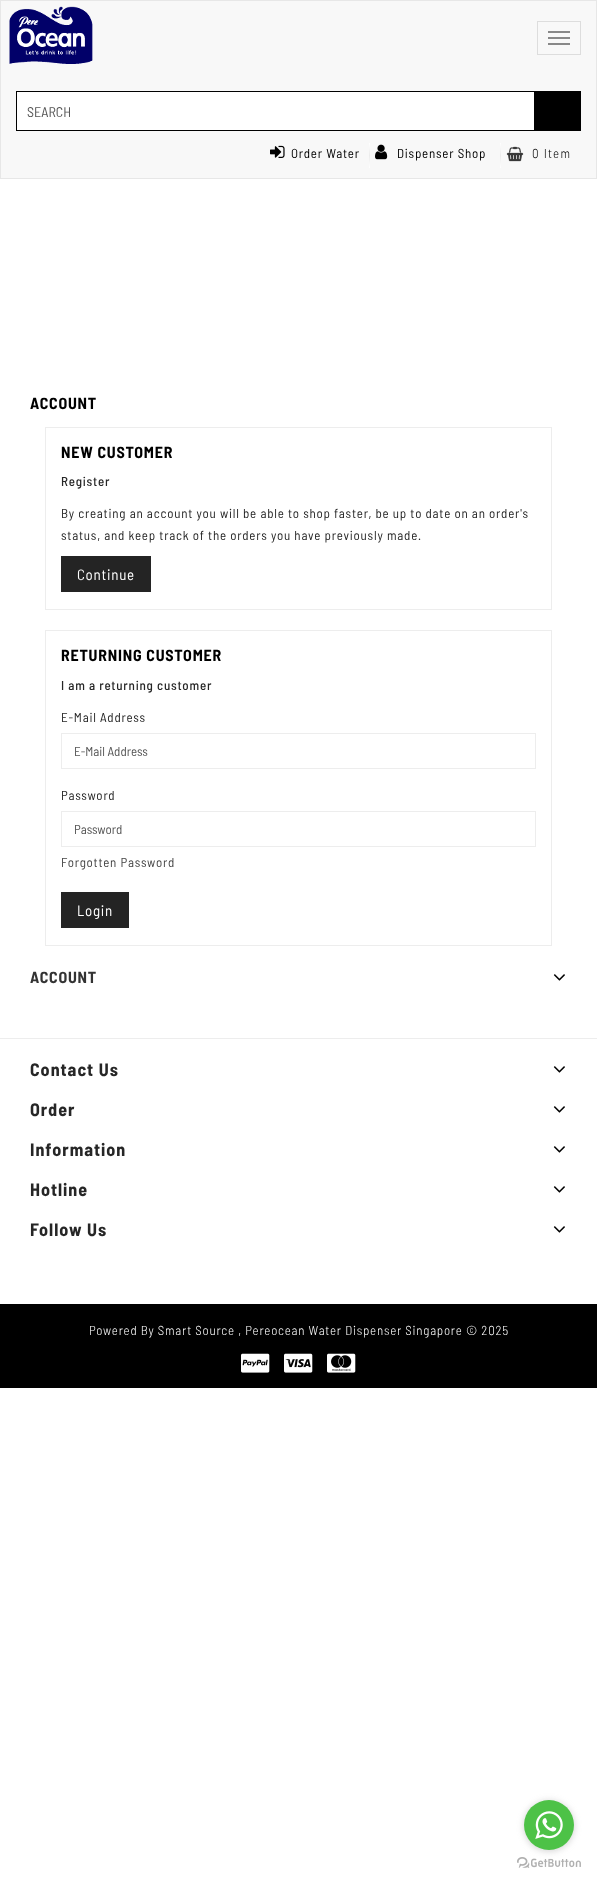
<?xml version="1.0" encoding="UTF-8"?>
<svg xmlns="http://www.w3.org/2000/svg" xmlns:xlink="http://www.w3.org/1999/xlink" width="597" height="1884">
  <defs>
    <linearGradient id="g1" gradientUnits="userSpaceOnUse" x1="370" y1="143" x2="370" y2="168"><stop offset="0" stop-color="#ffffff" /><stop offset="0.5" stop-color="#ebebeb" /><stop offset="1" stop-color="#ffffff" /></linearGradient>
    <linearGradient id="g2" gradientUnits="userSpaceOnUse" x1="501" y1="143" x2="501" y2="168"><stop offset="0" stop-color="#ffffff" /><stop offset="0.5" stop-color="#ebebeb" /><stop offset="1" stop-color="#ffffff" /></linearGradient>
  </defs>
  <rect width="100%" height="100%" fill="#ffffff" />
  <rect x="0.5" y="0.5" width="596" height="178" fill="#f8f8f8" stroke="#e7e7e7" />
  <image x="9" y="6" width="84" height="58" xlink:href="image1.png" />
  <rect x="537.5" y="21.5" width="43" height="33" fill="none" stroke="#dddddd" />
  <rect x="548" y="31" width="22" height="2" fill="#888888" />
  <rect x="548" y="37" width="22" height="2" fill="#888888" />
  <rect x="548" y="43" width="22" height="2" fill="#888888" />
  <rect x="17" y="92" width="517" height="38" fill="#ffffff" />
  <rect x="16.5" y="91.5" width="564" height="39" fill="none" stroke="#000000" />
  <rect x="534" y="92" width="46" height="38" fill="#000000" />
  <image x="270" y="145" width="15" height="13" xlink:href="image2.png" />
  <rect x="369" y="143" width="1" height="25" fill="url(#g1)" />
  <image x="375" y="144" width="13" height="16" xlink:href="image3.png" />
  <rect x="500" y="143" width="1" height="25" fill="url(#g2)" />
  <image x="506" y="146" width="18" height="16" xlink:href="image4.png" />
  <rect x="45.5" y="427.5" width="506" height="182" fill="none" stroke="#ededed" />
  <rect x="61" y="556" width="90" height="36" fill="#242424" />
  <rect x="45.5" y="630.5" width="506" height="315" fill="none" stroke="#ededed" />
  <rect x="61.5" y="733.5" width="474" height="35" fill="none" stroke="#ededed" />
  <rect x="61.5" y="811.5" width="474" height="35" fill="none" stroke="#ededed" />
  <rect x="61" y="892" width="68" height="36" fill="#242424" />
  <image x="553" y="974" width="12" height="7" xlink:href="image5.png" />
  <rect y="1038" width="597" height="1" fill="#ededed" />
  <image x="553" y="1066" width="12" height="7" xlink:href="image5.png" />
  <image x="553" y="1106" width="12" height="7" xlink:href="image5.png" />
  <image x="553" y="1146" width="12" height="7" xlink:href="image5.png" />
  <image x="553" y="1186" width="12" height="7" xlink:href="image5.png" />
  <image x="553" y="1226" width="12" height="7" xlink:href="image5.png" />
  <rect y="1304" width="597" height="84" fill="#000000" />
  <image x="241" y="1353" width="29" height="20" xlink:href="image6.png" />
  <image x="284" y="1353" width="29" height="20" xlink:href="image7.png" />
  <image x="327" y="1353" width="29" height="20" xlink:href="image8.png" />
  <image x="517" y="1857" width="64" height="11" xlink:href="image10.png" />
  <rect x="524" y="1801" width="50" height="50" rx="25" fill="#888888" fill-opacity="0.4" filter="blur(3.5px)" />
  <circle cx="549" cy="1825" r="25" fill="#4dc247" />
  <image x="535" y="1811" width="28" height="28" xlink:href="image9.png" />
  <text x="27" y="117" style="font-family: Barlow Semi Condensed; font-size: 14px; fill: #555555">SEARCH</text>
  <text x="291" y="158" style="font-family: Barlow Semi Condensed; font-size: 13px; letter-spacing: 0.78px; fill: #000000">Order Water</text>
  <text x="397" y="158" style="font-family: Barlow Semi Condensed; font-size: 13px; letter-spacing: 0.78px; fill: #000000">Dispenser Shop</text>
  <text x="532" y="158" style="font-family: Barlow Semi Condensed; font-size: 13px; font-weight: 300; letter-spacing: 1.25px; fill: #000000">0 Item</text>
  <text x="30" y="409" style="font-family: Barlow Semi Condensed; font-size: 16px; font-weight: bold; letter-spacing: 0.78px; fill: #000000">ACCOUNT</text>
  <text x="61" y="458" style="font-family: Barlow Semi Condensed; font-size: 16px; font-weight: bold; letter-spacing: 0.78px; fill: #000000">NEW CUSTOMER</text>
  <text x="61" y="486" style="font-family: Barlow Semi Condensed; font-size: 13px; font-weight: 500; letter-spacing: 0.78px; fill: #262626">Register</text>
  <text x="61" y="518" style="font-family: Barlow Semi Condensed; font-size: 13px; letter-spacing: 0.78px; fill: #262626">By creating an account you will be able to shop faster, be up to date on an order's</text>
  <text x="61" y="540" style="font-family: Barlow Semi Condensed; font-size: 13px; letter-spacing: 0.78px; fill: #262626">status, and keep track of the orders you have previously made.</text>
  <text x="77" y="580" style="font-family: Barlow Semi Condensed; font-size: 15px; letter-spacing: 0.75px; fill: #ffffff">Continue</text>
  <text x="61" y="661" style="font-family: Barlow Semi Condensed; font-size: 16px; font-weight: bold; letter-spacing: 0.78px; fill: #000000">RETURNING CUSTOMER</text>
  <text x="61" y="690" style="font-family: Barlow Semi Condensed; font-size: 13px; font-weight: 500; letter-spacing: 0.78px; fill: #262626">I am a returning customer</text>
  <text x="61" y="722" style="font-family: Barlow Semi Condensed; font-size: 13px; letter-spacing: 0.78px; fill: #262626">E-Mail Address</text>
  <text x="74" y="756" style="font-family: Barlow Semi Condensed; font-size: 13px; fill: #555555">E-Mail Address</text>
  <text x="61" y="800" style="font-family: Barlow Semi Condensed; font-size: 13px; letter-spacing: 0.78px; fill: #262626">Password</text>
  <text x="74" y="834" style="font-family: Barlow Semi Condensed; font-size: 13px; fill: #555555">Password</text>
  <text x="61" y="867" style="font-family: Barlow Semi Condensed; font-size: 13px; letter-spacing: 0.78px; fill: #454545">Forgotten Password</text>
  <text x="77" y="916" style="font-family: Barlow Semi Condensed; font-size: 15px; letter-spacing: 0.75px; fill: #ffffff">Login</text>
  <text x="30" y="983" style="font-family: Barlow Semi Condensed; font-size: 16px; font-weight: bold; letter-spacing: 0.78px; fill: #333333">ACCOUNT</text>
  <text x="30" y="1076" style="font-family: Barlow Semi Condensed; font-size: 18px; font-weight: bold; letter-spacing: 1px; fill: #262626">Contact Us</text>
  <text x="30" y="1116" style="font-family: Barlow Semi Condensed; font-size: 18px; font-weight: bold; letter-spacing: 1px; fill: #262626">Order</text>
  <text x="30" y="1156" style="font-family: Barlow Semi Condensed; font-size: 18px; font-weight: bold; letter-spacing: 1px; fill: #262626">Information</text>
  <text x="30" y="1196" style="font-family: Barlow Semi Condensed; font-size: 18px; font-weight: bold; letter-spacing: 1px; fill: #262626">Hotline</text>
  <text x="30" y="1236" style="font-family: Barlow Semi Condensed; font-size: 18px; font-weight: bold; letter-spacing: 1px; fill: #262626">Follow Us</text>
  <text x="89" y="1335" style="font-family: Barlow Semi Condensed; font-size: 13px; font-weight: 300; letter-spacing: 0.78px; fill: #ffffff">Powered By Smart Source , Pereocean Water Dispenser Singapore © 2025</text>
</svg>
